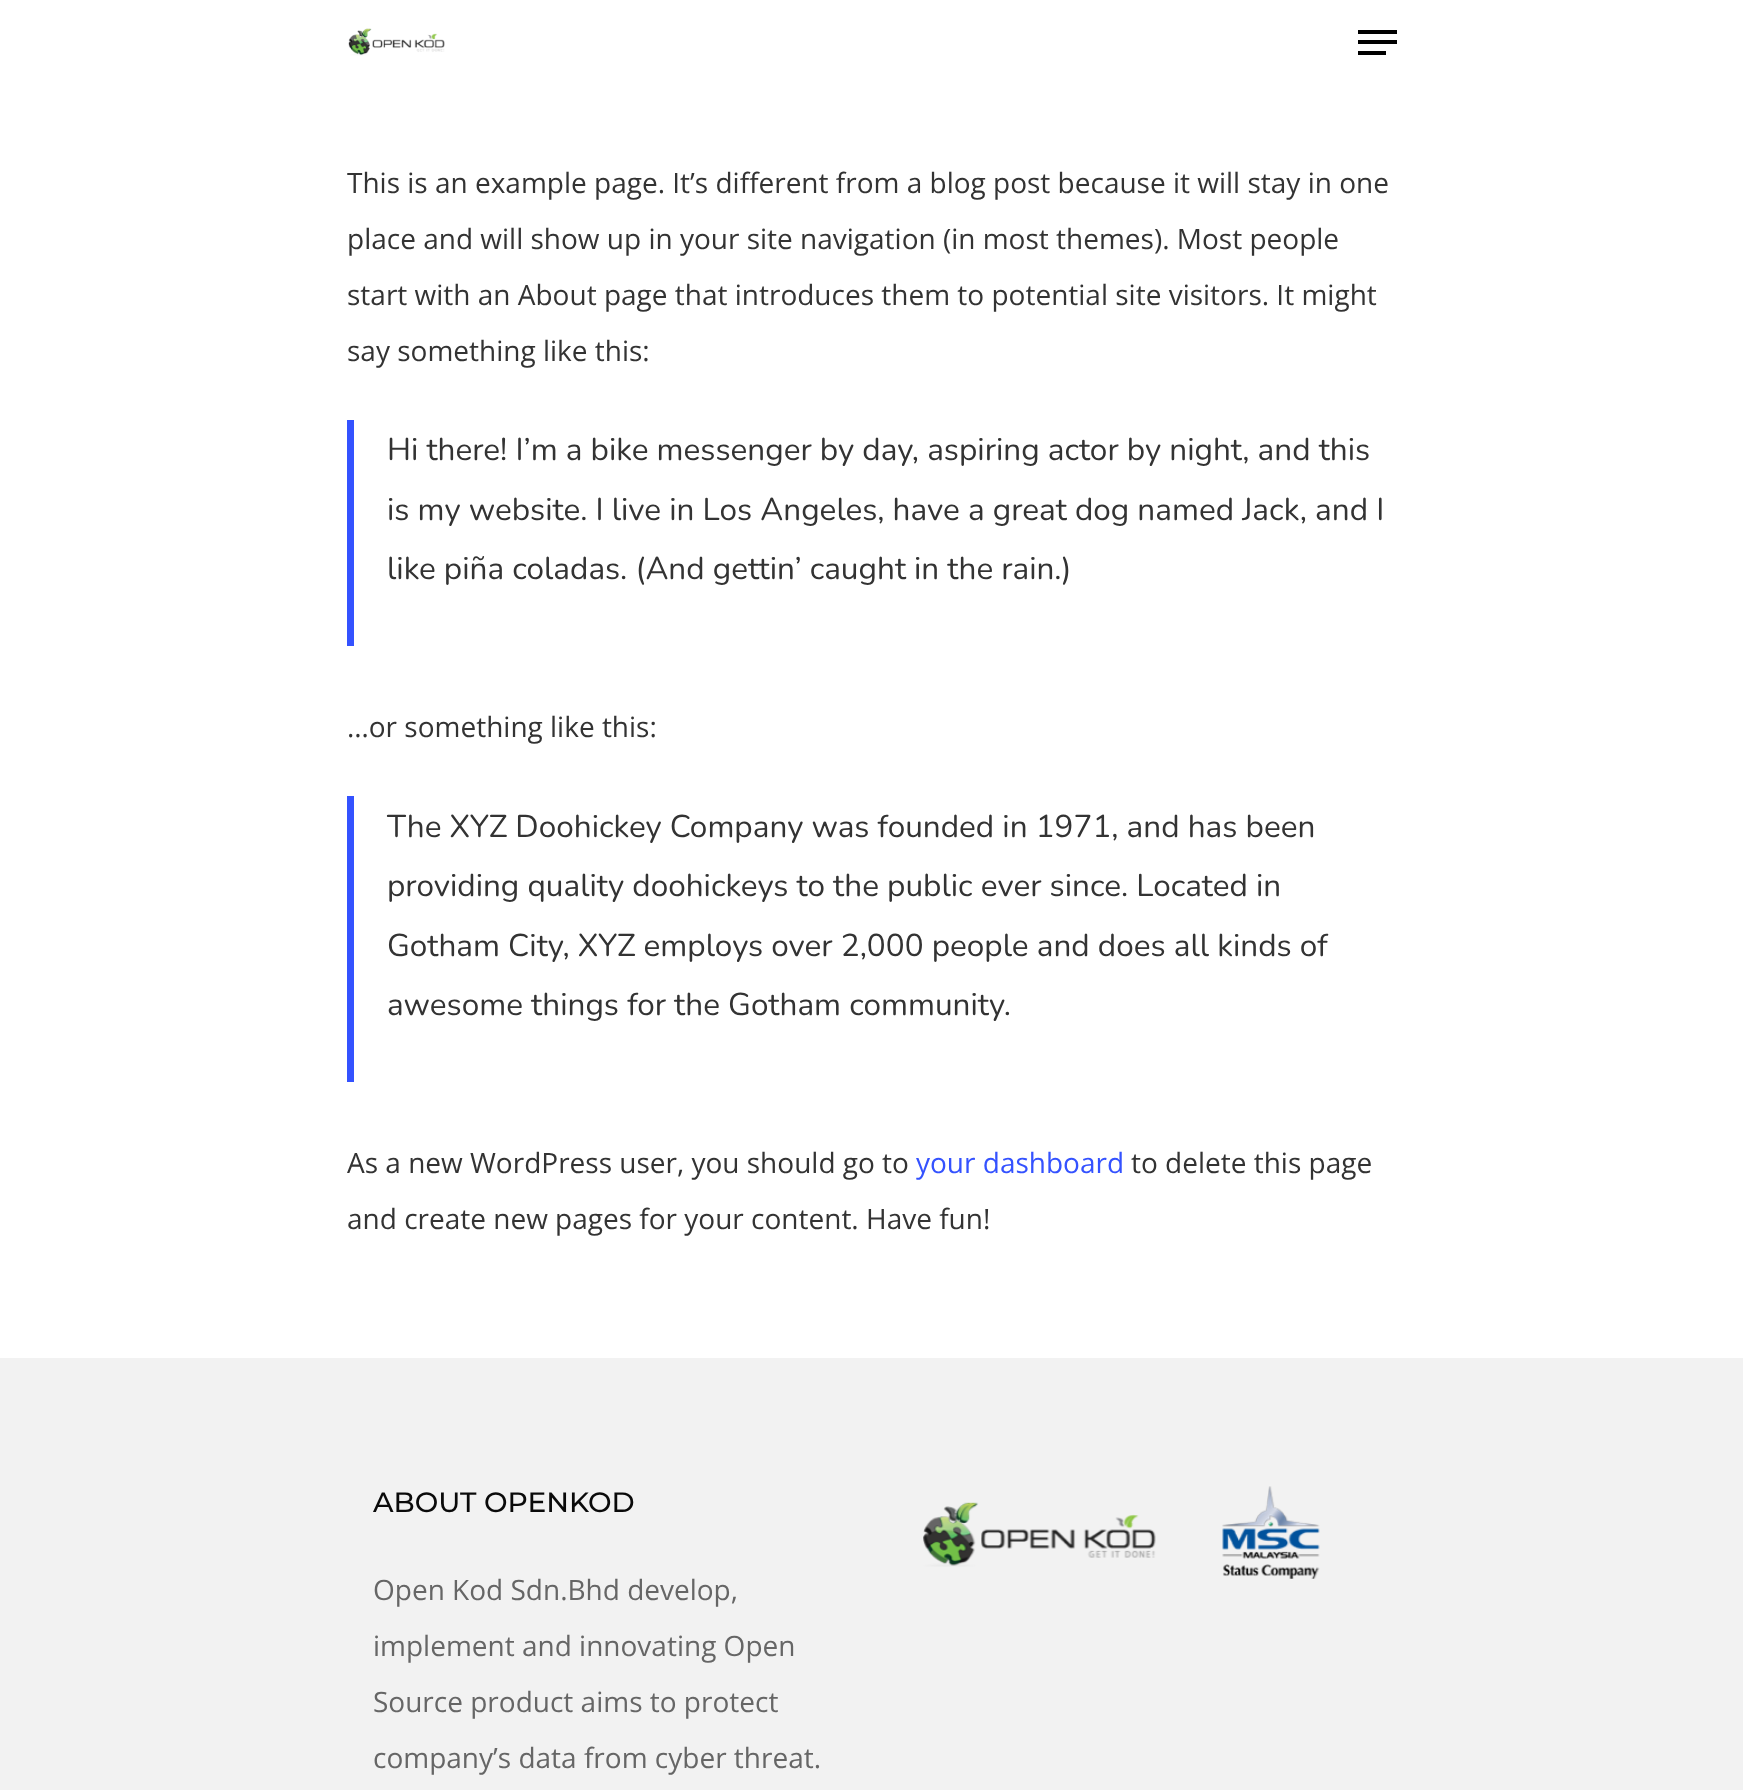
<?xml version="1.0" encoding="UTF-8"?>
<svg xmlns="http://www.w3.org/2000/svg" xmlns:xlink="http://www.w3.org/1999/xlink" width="1743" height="1790">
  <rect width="100%" height="100%" fill="#ffffff" />
  <image x="348" y="28" width="97" height="28" xlink:href="image1.png" />
  <rect x="1358" y="30" width="39" height="4" fill="#000000" />
  <rect x="1358" y="51" width="28" height="4" fill="#000000" />
  <rect x="1358" y="40" width="39" height="4" fill="#000000" />
  <rect x="347" y="420" width="7" height="226" fill="#3452ff" />
  <rect x="347" y="796" width="7" height="286" fill="#3452ff" />
  <rect y="1358" width="1743" height="432" fill="#f2f2f2" />
  <image x="923" y="1486" width="397" height="93" xlink:href="image2.png" />
  <text x="347" y="193" style="font-family: Open Sans; font-size: 28px; fill: #333333">This is an example page. It’s different from a blog post because it will stay in one</text>
  <text x="347" y="249" style="font-family: Open Sans; font-size: 28px; fill: #333333">place and will show up in your site navigation (in most themes). Most people</text>
  <text x="347" y="305" style="font-family: Open Sans; font-size: 28px; fill: #333333">start with an About page that introduces them to potential site visitors. It might</text>
  <text x="347" y="361" style="font-family: Open Sans; font-size: 28px; fill: #333333">say something like this:</text>
  <text x="387" y="460" style="font-family: Nunito; font-size: 31.5px; fill: #333333">Hi there! I’m a bike messenger by day, aspiring actor by night, and this</text>
  <text x="387" y="520" style="font-family: Nunito; font-size: 31.5px; fill: #333333">is my website. I live in Los Angeles, have a great dog named Jack, and I</text>
  <text x="387" y="579" style="font-family: Nunito; font-size: 31.5px; fill: #333333">like piña coladas. (And gettin’ caught in the rain.)</text>
  <text x="347" y="737" style="font-family: Open Sans; font-size: 28px; fill: #333333">…or something like this:</text>
  <text x="387" y="837" style="font-family: Nunito; font-size: 31.5px; fill: #333333">The XYZ Doohickey Company was founded in 1971, and has been</text>
  <text x="387" y="896" style="font-family: Nunito; font-size: 31.5px; fill: #333333">providing quality doohickeys to the public ever since. Located in</text>
  <text x="387" y="956" style="font-family: Nunito; font-size: 31.5px; fill: #333333">Gotham City, XYZ employs over 2,000 people and does all kinds of</text>
  <text x="387" y="1015" style="font-family: Nunito; font-size: 31.5px; fill: #333333">awesome things for the Gotham community.</text>
  <text x="347" y="1173" style="font-family: Open Sans; font-size: 28px; fill: #333333">As a new WordPress user, you should go to</text>
  <text x="916" y="1173" style="font-family: Open Sans; font-size: 28px; fill: #3452ff">your dashboard</text>
  <text x="1131" y="1173" style="font-family: Open Sans; font-size: 28px; fill: #333333">to delete this page</text>
  <text x="347" y="1229" style="font-family: Open Sans; font-size: 28px; fill: #333333">and create new pages for your content. Have fun!</text>
  <text x="373" y="1512" style="font-family: Montserrat; font-size: 28px; font-weight: 100; fill: #0a0a0a">ABOUT OPENKOD</text>
  <text x="373" y="1600" style="font-family: Open Sans; font-size: 28px; fill: #666666">Open Kod Sdn.Bhd develop,</text>
  <text x="373" y="1656" style="font-family: Open Sans; font-size: 28px; fill: #666666">implement and innovating Open</text>
  <text x="373" y="1712" style="font-family: Open Sans; font-size: 28px; fill: #666666">Source product aims to protect</text>
  <text x="373" y="1768" style="font-family: Open Sans; font-size: 28px; fill: #666666">company’s data from cyber threat.</text>
</svg>
